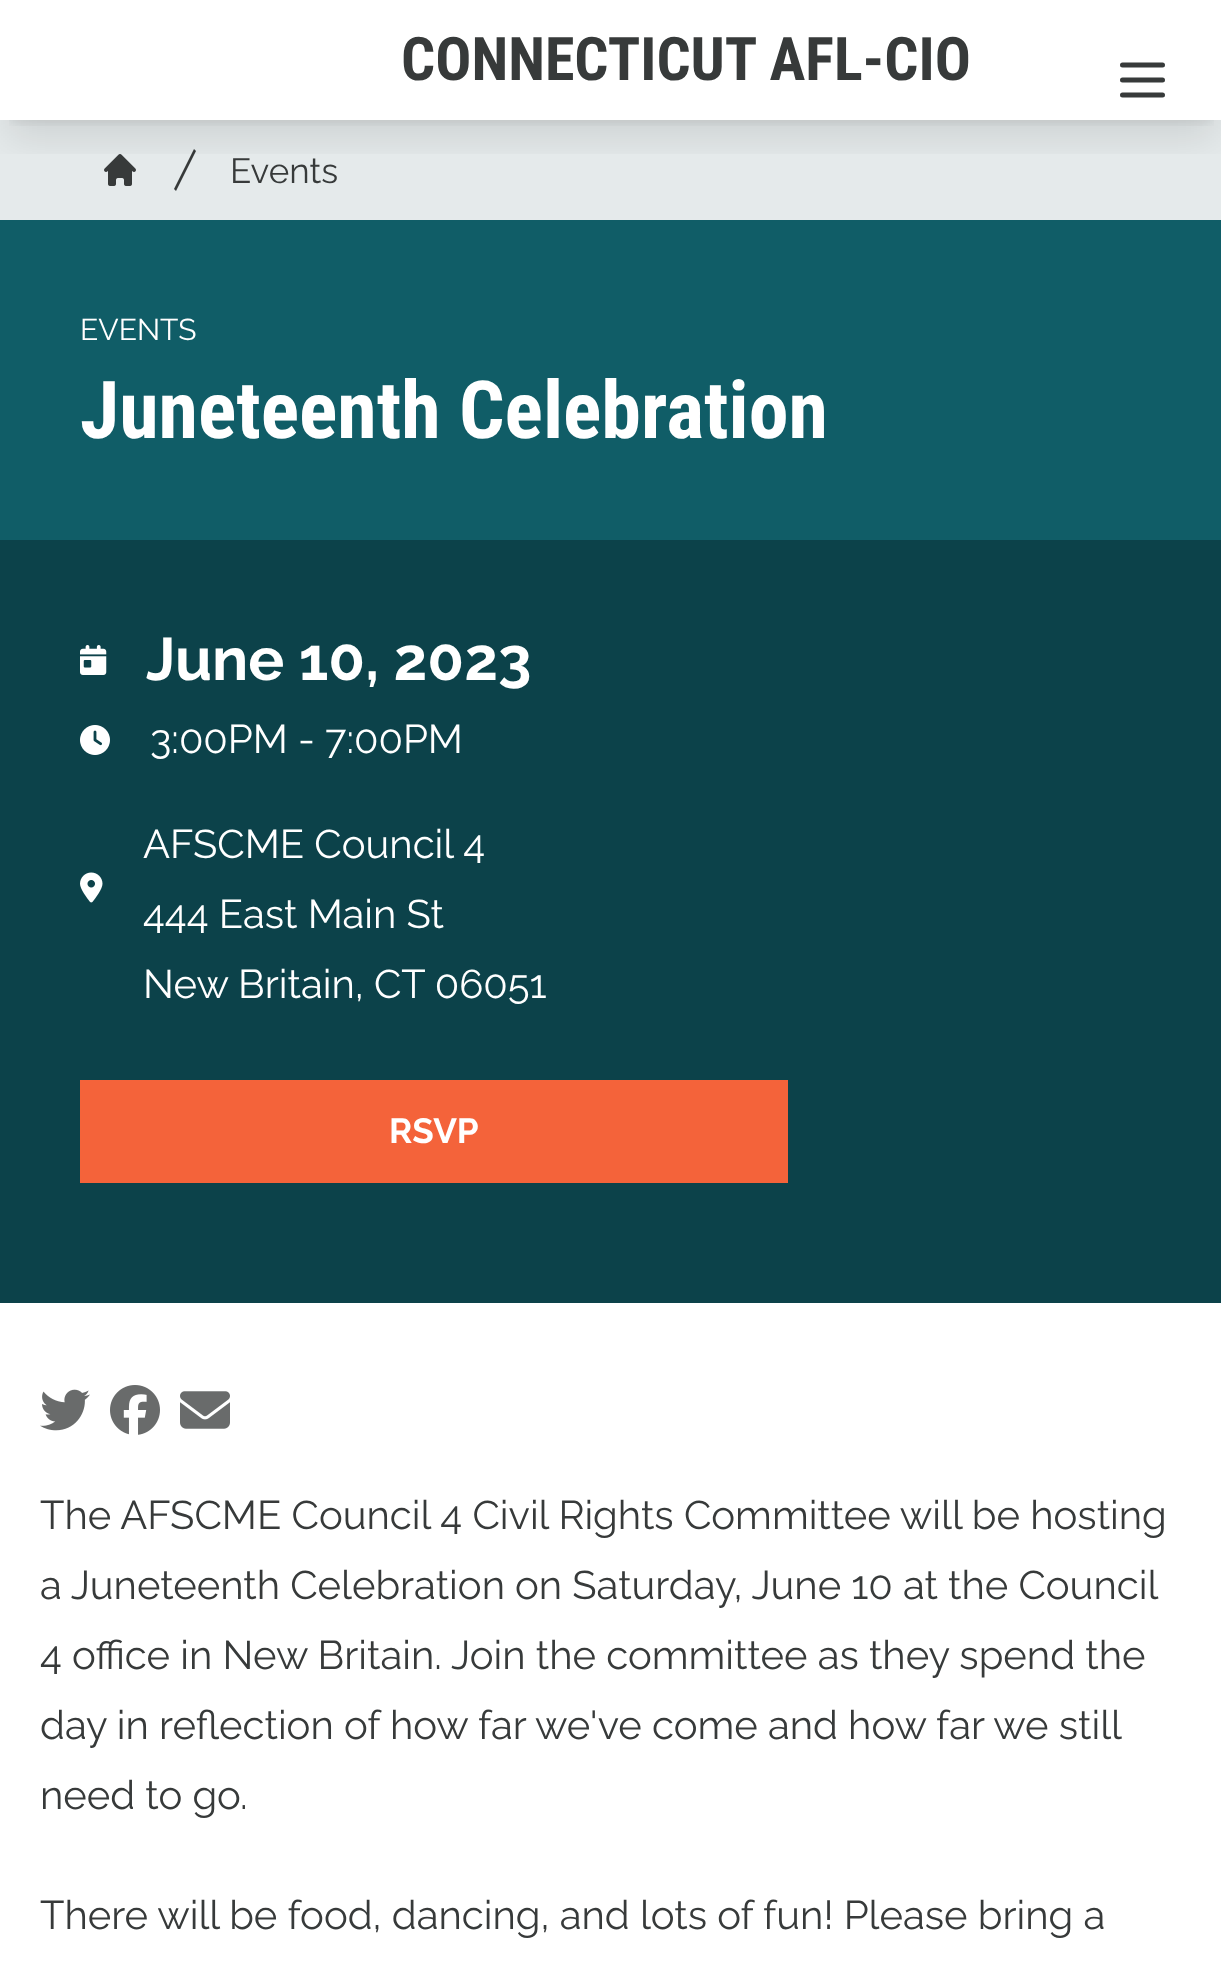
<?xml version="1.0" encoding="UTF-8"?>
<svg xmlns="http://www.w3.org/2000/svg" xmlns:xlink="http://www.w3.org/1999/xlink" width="1221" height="1977">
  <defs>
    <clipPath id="clip1"><rect x="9" y="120" width="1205" height="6" /></clipPath>
    <clipPath id="clip2"><rect x="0" y="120" width="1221" height="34" /></clipPath>
  </defs>
  <rect width="100%" height="100%" fill="#ffffff" />
  <rect y="120" width="1221" height="100" fill="#e5eaeb" />
  <g clip-path="url(#clip1)">
    <rect x="10" y="20" width="1203" height="100" fill="#000000" fill-opacity="0.1" filter="blur(7.5px)" />
  </g>
  <image x="104" y="154" width="32" height="32" xlink:href="image1.png" />
  <path d="M 174 189 l 20 -40 l 2 2 l -20 40 z" fill="#373a3a" />
  <g clip-path="url(#clip2)">
    <rect x="8" y="33" width="1207" height="105" fill="#000000" fill-opacity="0.1" filter="blur(19px)" />
  </g>
  <path d="M 1122.5 65 h 40 m -40 15 h 40 m -40 15 h 40" fill="none" stroke="#373a3a" stroke-width="5" stroke-linecap="round" stroke-linejoin="round" />
  <rect y="220" width="1221" height="320" fill="#105d67" />
  <rect y="540" width="1221" height="763" fill="#0c424a" />
  <image x="80" y="645" width="27" height="30" xlink:href="image2.png" />
  <image x="80" y="725" width="30" height="30" xlink:href="image3.png" />
  <image x="80" y="872" width="23" height="31" xlink:href="image4.png" />
  <rect x="80" y="1080" width="708" height="103" fill="#f4633a" />
  <image x="40" y="1389" width="50" height="42" xlink:href="image5.png" />
  <image x="110" y="1385" width="50" height="50" xlink:href="image6.png" />
  <image x="180" y="1391" width="50" height="38" xlink:href="image7.png" />
  <text x="401" y="80" style="font-family: Roboto Condensed; font-size: 60px; font-weight: bold; fill: #373a3a">CONNECTICUT AFL-CIO</text>
  <text x="230" y="183" style="font-family: Raleway; font-size: 35px; fill: #373a3a">Events</text>
  <text x="80" y="340" style="font-family: Raleway; font-size: 30px; fill: #ffffff">EVENTS</text>
  <text x="80" y="438" style="font-family: Roboto Condensed; font-size: 80px; font-weight: bold; fill: #ffffff">Juneteenth Celebration</text>
  <text x="146" y="680" style="font-family: Raleway; font-size: 60px; font-weight: bold; fill: #ffffff">June 10, 2023</text>
  <text x="150" y="753" style="font-family: Raleway; font-size: 40px; fill: #ffffff">3:00PM - 7:00PM</text>
  <text x="143" y="858" style="font-family: Raleway; font-size: 40px; fill: #ffffff">AFSCME Council 4</text>
  <text x="143" y="928" style="font-family: Raleway; font-size: 40px; fill: #ffffff">444 East Main St</text>
  <text x="143" y="998" style="font-family: Raleway; font-size: 40px; fill: #ffffff">New Britain, CT 06051</text>
  <text x="389" y="1143" style="font-family: Raleway; font-size: 35px; font-weight: bold; fill: #ffffff">RSVP</text>
  <text x="40" y="1529" style="font-family: Raleway; font-size: 40px; fill: #373a3a">The AFSCME Council 4 Civil Rights Committee will be hosting</text>
  <text x="40" y="1599" word-spacing="-0.1" style="font-family: Raleway; font-size: 40px; fill: #373a3a">a Juneteenth Celebration on Saturday, June 10 at the Council</text>
  <text x="40" y="1669" style="font-family: Raleway; font-size: 40px; fill: #373a3a">4 office in New Britain. Join the committee as they spend the</text>
  <text x="40" y="1739" style="font-family: Raleway; font-size: 40px; fill: #373a3a">day in reflection of how far we've come and how far we still</text>
  <text x="40" y="1809" style="font-family: Raleway; font-size: 40px; fill: #373a3a">need to go.</text>
  <text x="40" y="1929" style="font-family: Raleway; font-size: 40px; fill: #373a3a">There will be food, dancing, and lots of fun! Please bring a</text>
</svg>
